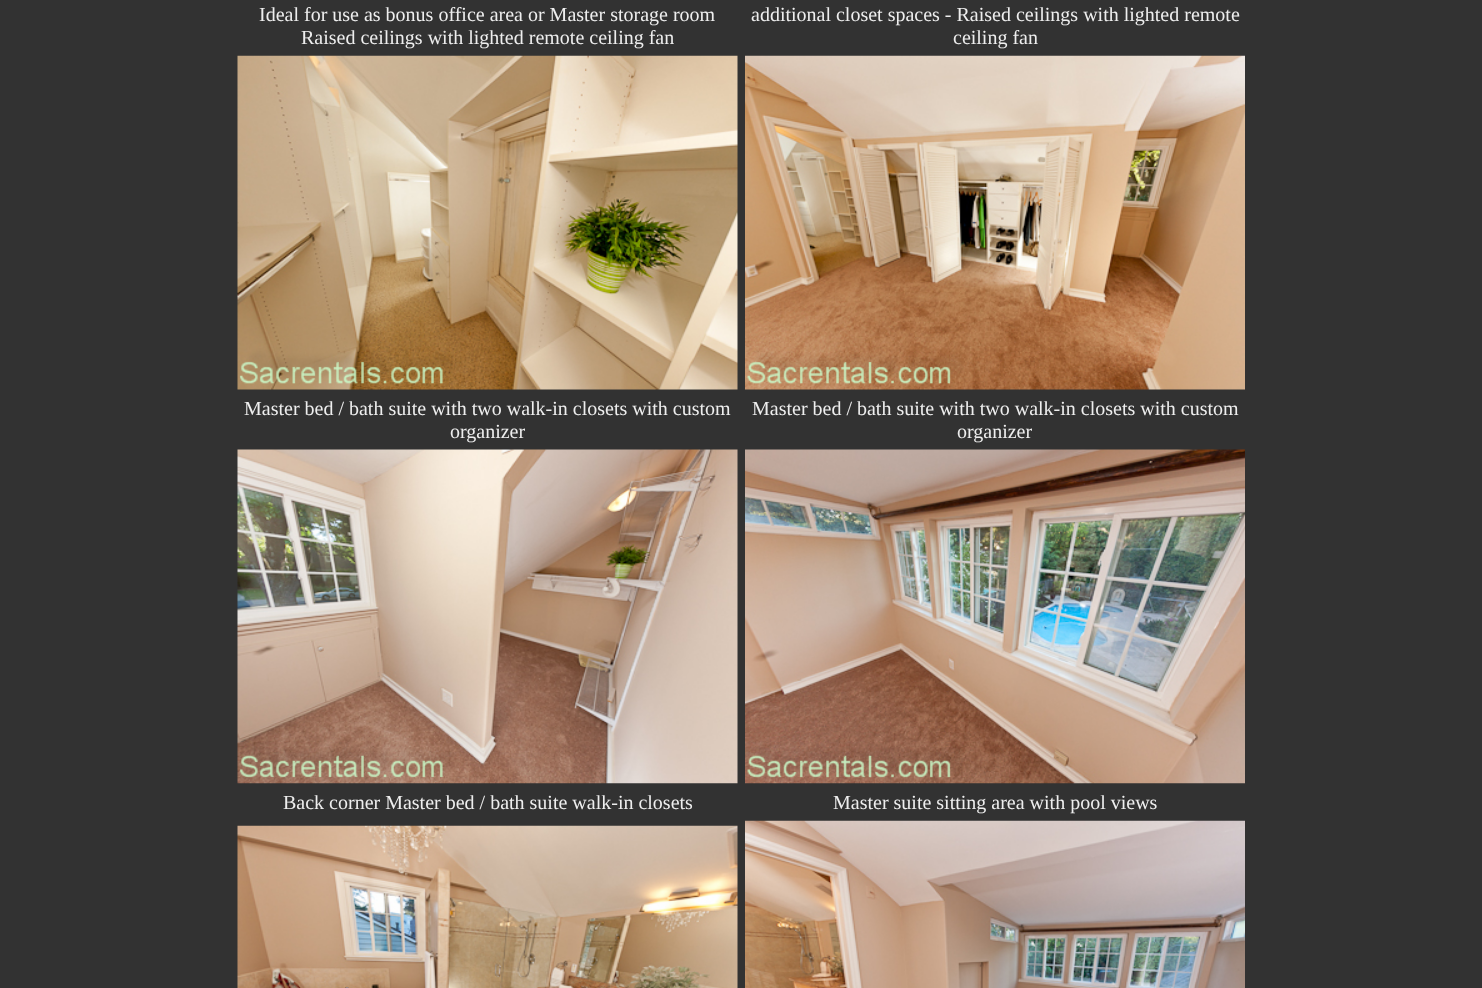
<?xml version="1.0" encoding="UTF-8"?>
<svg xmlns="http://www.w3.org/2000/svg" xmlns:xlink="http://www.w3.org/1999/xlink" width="1482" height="988">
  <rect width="100%" height="100%" fill="#323232" />
  <image x="237" y="55" width="501" height="335" xlink:href="image1.png" />
  <image x="745" y="55" width="500" height="335" xlink:href="image2.png" />
  <image x="237" y="449" width="501" height="335" xlink:href="image3.png" />
  <image x="745" y="449" width="500" height="335" xlink:href="image4.png" />
  <image x="237" y="825" width="501" height="163" xlink:href="image5.png" />
  <image x="745" y="820" width="500" height="168" xlink:href="image6.png" />
  <text x="259" y="21" style="font-family: Liberation Serif; font-size: 20px; fill: #eeeeee">Ideal for use as bonus office area or Master storage room</text>
  <text x="301" y="44" style="font-family: Liberation Serif; font-size: 20px; fill: #eeeeee">Raised ceilings with lighted remote ceiling fan</text>
  <text x="751" y="21" style="font-family: Liberation Serif; font-size: 20px; fill: #eeeeee">additional closet spaces - Raised ceilings with lighted remote</text>
  <text x="953" y="44" style="font-family: Liberation Serif; font-size: 20px; fill: #eeeeee">ceiling fan</text>
  <text x="244" y="415" style="font-family: Liberation Serif; font-size: 20px; fill: #eeeeee">Master bed / bath suite with two walk-in closets with custom</text>
  <text x="450" y="438" style="font-family: Liberation Serif; font-size: 20px; fill: #eeeeee">organizer</text>
  <text x="752" y="415" style="font-family: Liberation Serif; font-size: 20px; fill: #eeeeee">Master bed / bath suite with two walk-in closets with custom</text>
  <text x="957" y="438" style="font-family: Liberation Serif; font-size: 20px; fill: #eeeeee">organizer</text>
  <text x="283" y="809" style="font-family: Liberation Serif; font-size: 20px; fill: #eeeeee">Back corner Master bed / bath suite walk-in closets</text>
  <text x="833" y="809" style="font-family: Liberation Serif; font-size: 20px; fill: #eeeeee">Master suite sitting area with pool views</text>
</svg>
